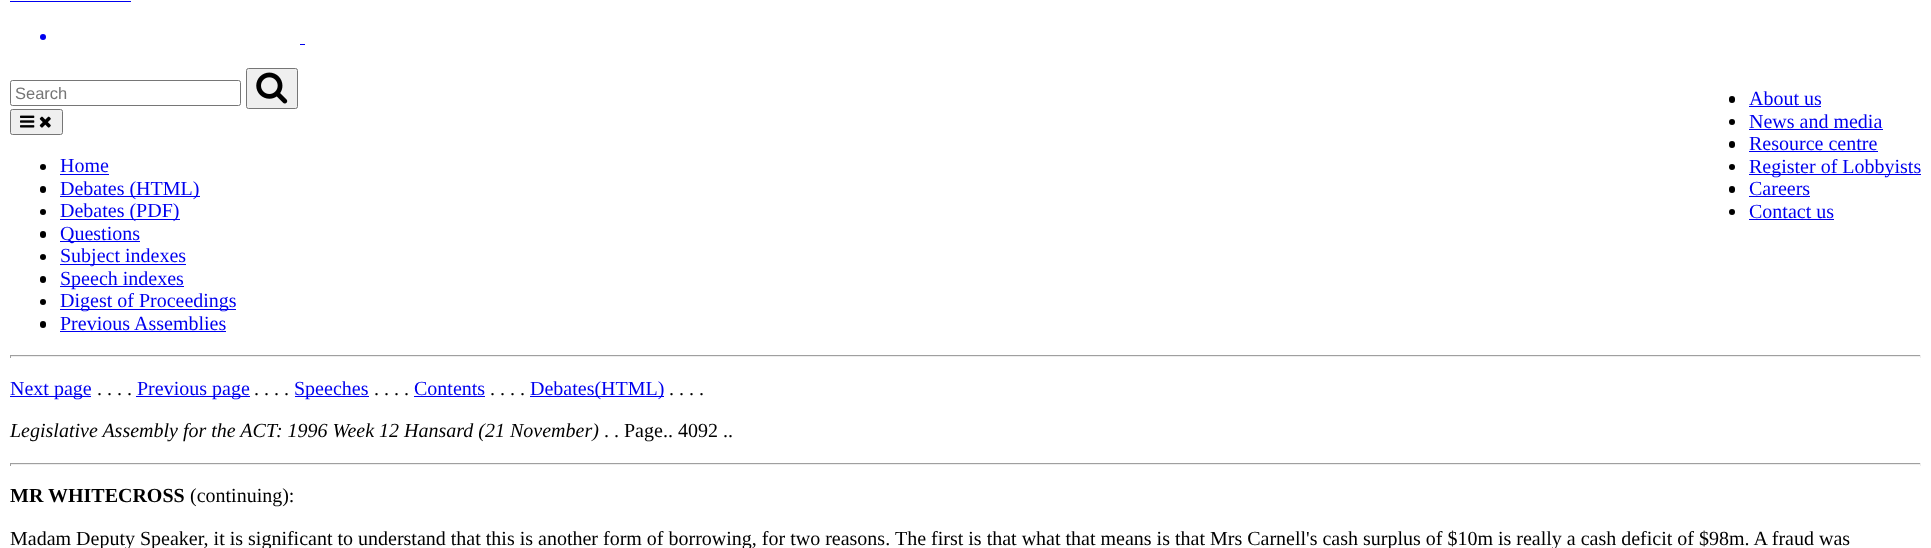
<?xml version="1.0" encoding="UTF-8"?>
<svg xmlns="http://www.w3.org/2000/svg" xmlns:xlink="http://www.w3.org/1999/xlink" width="1931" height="548">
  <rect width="100%" height="100%" fill="#ffffff" />
  <rect x="10" y="1" width="121" height="1" fill="#0000ee" />
  <circle cx="43" cy="37" r="3" fill="#0000ee" />
  <rect x="300" y="44" width="5" height="1" fill="#0000ee" />
  <rect x="10.5" y="80.5" width="230" height="25" rx="2" fill="none" stroke="#767676" />
  <rect x="246.5" y="68.5" width="51" height="40" rx="2" fill="#efefef" stroke="#767676" />
  <image x="256" y="72" width="32" height="32" xlink:href="image1.png" />
  <rect x="1729" y="96" width="6" height="7" rx="3" fill="#000000" />
  <rect x="1749" y="106" width="72" height="1" fill="#0000ee" />
  <circle cx="1732" cy="122" r="3" fill="#000000" />
  <rect x="1749" y="129" width="134" height="1" fill="#0000ee" />
  <rect x="1729" y="141" width="6" height="7" rx="3" fill="#000000" />
  <rect x="1749" y="151" width="129" height="1" fill="#0000ee" />
  <circle cx="1732" cy="167" r="3" fill="#000000" />
  <rect x="1749" y="174" width="172" height="1" fill="#0000ee" />
  <rect x="1729" y="186" width="6" height="7" rx="3" fill="#000000" />
  <rect x="1749" y="196" width="61" height="1" fill="#0000ee" />
  <circle cx="1732" cy="212" r="3" fill="#000000" />
  <rect x="1749" y="219" width="85" height="1" fill="#0000ee" />
  <rect x="10.5" y="109.5" width="52" height="25" rx="2" fill="#efefef" stroke="#767676" />
  <image x="20" y="115" width="15" height="13" xlink:href="image2.png" />
  <image x="39" y="116" width="12" height="12" xlink:href="image3.png" />
  <circle cx="43" cy="167" r="3" fill="#000000" />
  <rect x="60" y="174" width="49" height="1" fill="#0000ee" />
  <rect x="40" y="186" width="6" height="7" rx="3" fill="#000000" />
  <rect x="60" y="196" width="140" height="1" fill="#0000ee" />
  <circle cx="43" cy="212" r="3" fill="#000000" />
  <rect x="60" y="219" width="120" height="1" fill="#0000ee" />
  <rect x="40" y="231" width="6" height="7" rx="3" fill="#000000" />
  <rect x="60" y="241" width="80" height="1" fill="#0000ee" />
  <circle cx="43" cy="257" r="3" fill="#000000" />
  <rect x="60" y="264" width="126" height="1" fill="#0000ee" />
  <rect x="40" y="276" width="6" height="7" rx="3" fill="#000000" />
  <rect x="60" y="286" width="124" height="1" fill="#0000ee" />
  <circle cx="43" cy="302" r="3" fill="#000000" />
  <rect x="60" y="309" width="176" height="1" fill="#0000ee" />
  <rect x="40" y="321" width="6" height="7" rx="3" fill="#000000" />
  <rect x="60" y="331" width="166" height="1" fill="#0000ee" />
  <rect x="10" y="355" width="1911" height="1" fill="#9f9f9f" />
  <rect x="1920" y="355" width="1" height="3" fill="#eeeeee" />
  <rect x="10" y="356" width="1911" height="1" fill="#eeeeee" />
  <rect x="10" y="355" width="1" height="3" fill="#9f9f9f" />
  <rect x="10" y="396" width="81" height="1" fill="#0000ee" />
  <rect x="136" y="396" width="114" height="1" fill="#0000ee" />
  <rect x="295" y="396" width="74" height="1" fill="#0000ee" />
  <rect x="414" y="396" width="71" height="1" fill="#0000ee" />
  <rect x="530" y="396" width="134" height="1" fill="#0000ee" />
  <rect x="10" y="463" width="1911" height="1" fill="#9f9f9f" />
  <rect x="1920" y="463" width="1" height="3" fill="#eeeeee" />
  <rect x="10" y="464" width="1911" height="1" fill="#eeeeee" />
  <rect x="10" y="463" width="1" height="3" fill="#9f9f9f" />
  <text x="15" y="99" style="font-family: Liberation Sans; font-size: 16.5px; fill: #757575">Search</text>
  <text x="1749" y="105" style="font-family: Liberation Serif; font-size: 20px; fill: #0000ee">About us</text>
  <text x="1749" y="128" style="font-family: Liberation Serif; font-size: 20px; fill: #0000ee">News and media</text>
  <text x="1749" y="150" style="font-family: Liberation Serif; font-size: 20px; fill: #0000ee">Resource centre</text>
  <text x="1749" y="173" style="font-family: Liberation Serif; font-size: 20px; fill: #0000ee">Register of Lobbyists</text>
  <text x="1749" y="195" style="font-family: Liberation Serif; font-size: 20px; fill: #0000ee">Careers</text>
  <text x="1749" y="218" style="font-family: Liberation Serif; font-size: 20px; fill: #0000ee">Contact us</text>
  <text x="60" y="172" style="font-family: Liberation Serif; font-size: 20px; fill: #0000ee">Home</text>
  <text x="60" y="195" style="font-family: Liberation Serif; font-size: 20px; fill: #0000ee">Debates (HTML)</text>
  <text x="60" y="217" style="font-family: Liberation Serif; font-size: 20px; fill: #0000ee">Debates (PDF)</text>
  <text x="60" y="240" style="font-family: Liberation Serif; font-size: 20px; fill: #0000ee">Questions</text>
  <text x="60" y="262" style="font-family: Liberation Serif; font-size: 20px; fill: #0000ee">Subject indexes</text>
  <text x="60" y="285" style="font-family: Liberation Serif; font-size: 20px; fill: #0000ee">Speech indexes</text>
  <text x="60" y="307" style="font-family: Liberation Serif; font-size: 20px; fill: #0000ee">Digest of Proceedings</text>
  <text x="60" y="330" style="font-family: Liberation Serif; font-size: 20px; fill: #0000ee">Previous</text>
  <text x="134" y="330" style="font-family: Liberation Serif; font-size: 20px; fill: #0000ee">Assemblies</text>
  <text x="10" y="395" style="font-family: Liberation Serif; font-size: 20px; fill: #0000ee">Next page</text>
  <text x="97" y="395" style="font-family: Liberation Serif; font-size: 20px; fill: #000000">. . . .</text>
  <text x="137" y="395" style="font-family: Liberation Serif; font-size: 20px; fill: #0000ee">Previous page</text>
  <text x="254" y="395" style="font-family: Liberation Serif; font-size: 20px; fill: #000000">. . . .</text>
  <text x="294" y="395" style="font-family: Liberation Serif; font-size: 20px; fill: #0000ee">Speeches</text>
  <text x="374" y="395" style="font-family: Liberation Serif; font-size: 20px; fill: #000000">. . . .</text>
  <text x="414" y="395" style="font-family: Liberation Serif; font-size: 20px; fill: #0000ee">Contents</text>
  <text x="490" y="395" style="font-family: Liberation Serif; font-size: 20px; fill: #000000">. . . .</text>
  <text x="530" y="395" style="font-family: Liberation Serif; font-size: 20px; fill: #0000ee">Debates(HTML)</text>
  <text x="669" y="395" style="font-family: Liberation Serif; font-size: 20px; fill: #000000">. . . .</text>
  <text x="10" y="437" style="font-family: Liberation Serif; font-size: 20px; font-style: italic; fill: #000000">Legislative Assembly for the ACT: 1996 Week 12 Hansard (21 November)</text>
  <text x="604" y="437" style="font-family: Liberation Serif; font-size: 20px; fill: #000000">. . Page.. 4092 ..</text>
  <text x="10" y="502" style="font-family: Liberation Serif; font-size: 20px; font-weight: bold; fill: #000000">MR WHITECROSS</text>
  <text x="190" y="502" style="font-family: Liberation Serif; font-size: 20px; fill: #000000">(continuing):</text>
  <text x="10" y="545" style="font-family: Liberation Serif; font-size: 20px; fill: #000000">Madam Deputy Speaker, it is significant to understand that this is another form of borrowing, for two reasons.</text>
  <text x="895" y="545" style="font-family: Liberation Serif; font-size: 20px; fill: #000000">The first is that what that means is that Mrs Carnell's cash surplus of $10m is really a cash deficit of $98m. A fraud was</text>
</svg>
